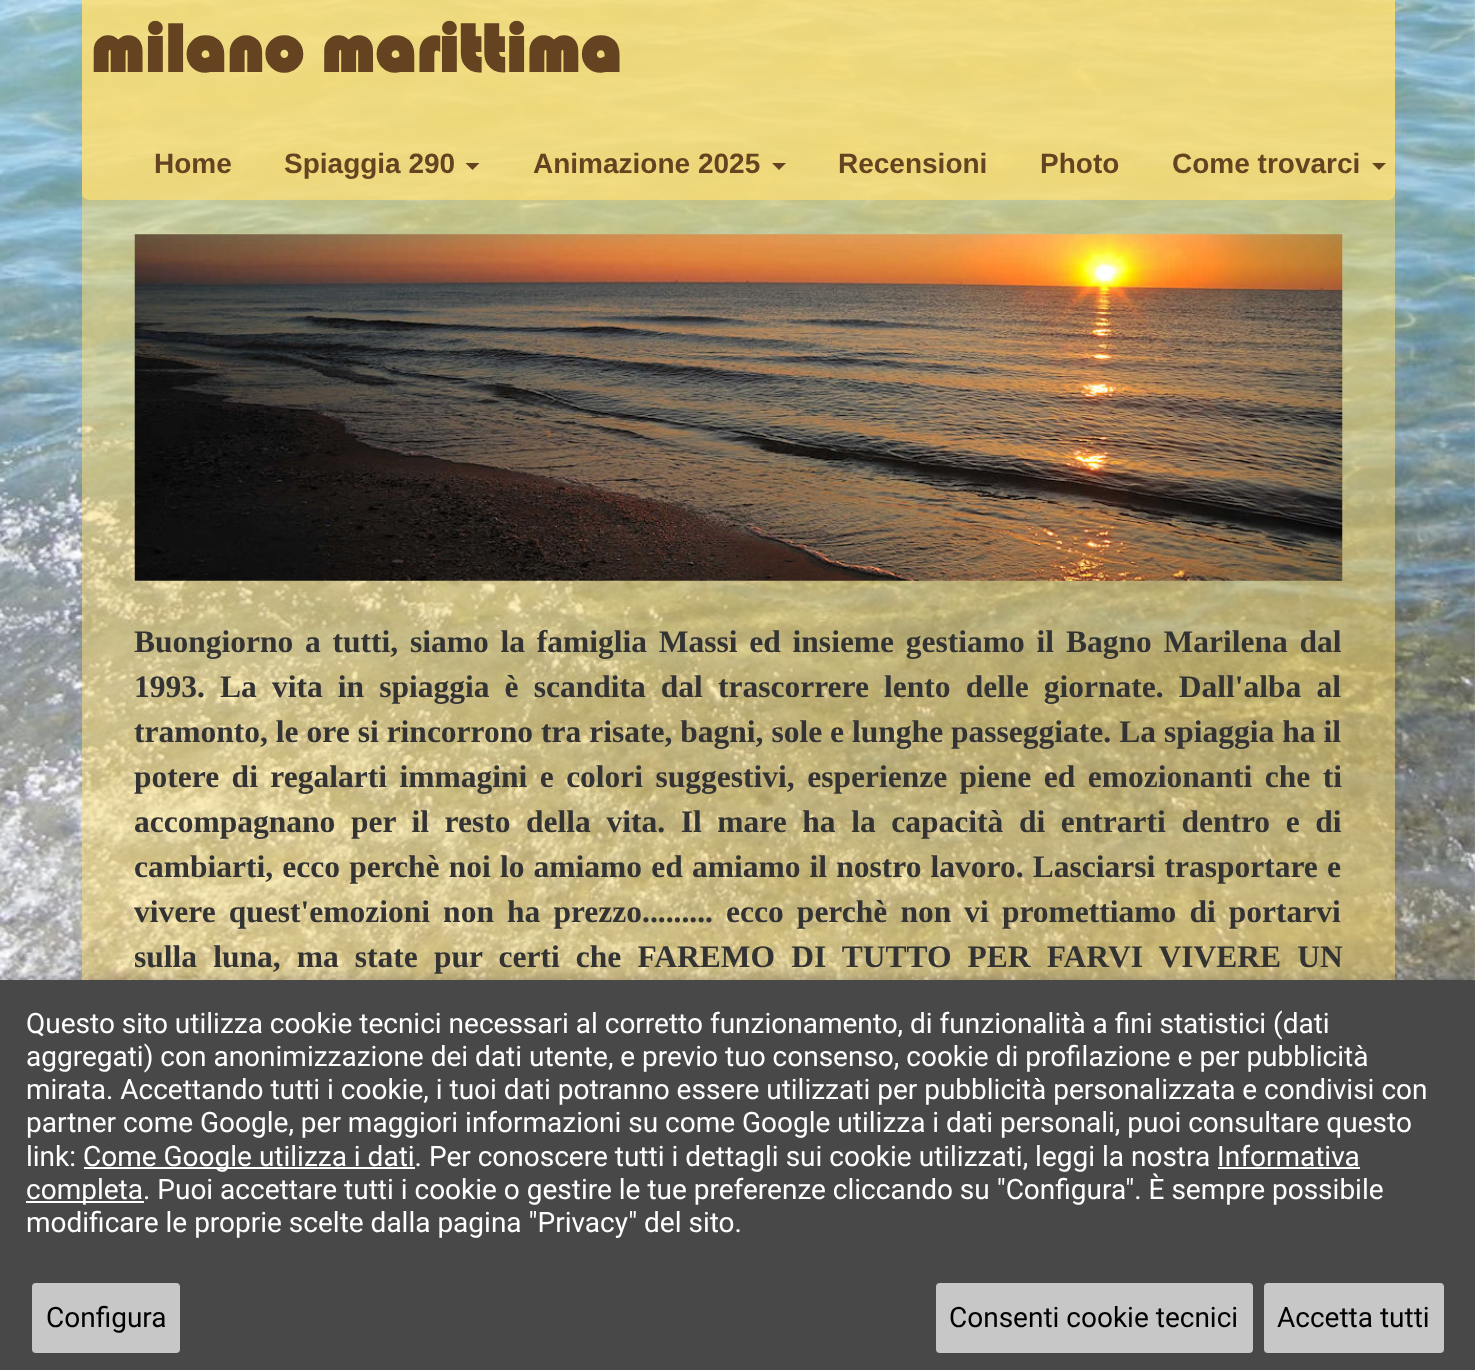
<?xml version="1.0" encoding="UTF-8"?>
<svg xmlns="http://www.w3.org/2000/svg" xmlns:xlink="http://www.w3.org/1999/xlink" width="1475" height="1370">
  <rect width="100%" height="100%" fill="#ffffff" />
  <image x="0" y="0" width="1475" height="980" xlink:href="image1.png" />
  <image x="1474" y="0" width="1" height="980" xlink:href="image2.png" />
  <rect x="82" width="1313" height="980" fill="#ffe073" fill-opacity="0.5" />
  <rect x="82" y="-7" width="1313" height="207" rx="7" fill="#ffe073" fill-opacity="0.7" />
  <path d="M 465.5 163 h 14 l -7 7 z" fill="#654321" />
  <path d="M 772 163 h 14 l -7 7 z" fill="#654321" />
  <path d="M 1372 163 h 14 l -7 7 z" fill="#654321" />
  <image x="134" y="234" width="1209" height="347" xlink:href="image3.png" />
  <rect y="978" width="1475" height="391" fill="#000000" fill-opacity="0.08" filter="blur(2.5px)" />
  <rect y="973" width="1475" height="390" fill="#32325d" fill-opacity="0.11" filter="blur(5px)" />
  <rect y="980" width="1475" height="390" fill="#484848" />
  <rect x="84" y="1167" width="331" height="2" fill="#ffffff" />
  <rect x="1218" y="1167" width="142" height="2" fill="#ffffff" />
  <rect x="26" y="1201" width="118" height="2" fill="#ffffff" />
  <rect x="32" y="1283" width="148" height="70" rx="4" fill="#c7c7c7" />
  <rect x="936" y="1283" width="317" height="70" rx="4" fill="#c7c7c7" />
  <rect x="1264" y="1283" width="180" height="70" rx="4" fill="#c7c7c7" />
  <text x="90" y="72" style="font-family: 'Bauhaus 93'; font-size: 70px; font-weight: bold; fill: #654321">milano marittima</text>
  <text x="154" y="173" style="font-family: Liberation Sans; font-size: 28px; font-weight: bold; fill: #654321">Home</text>
  <text x="284" y="173" style="font-family: Liberation Sans; font-size: 28px; font-weight: bold; fill: #654321">Spiaggia 290</text>
  <text x="533" y="173" style="font-family: Liberation Sans; font-size: 28px; font-weight: bold; fill: #654321">Animazione 2025</text>
  <text x="838" y="173" style="font-family: Liberation Sans; font-size: 28px; font-weight: bold; fill: #654321">Recensioni</text>
  <text x="1040" y="173" style="font-family: Liberation Sans; font-size: 28px; font-weight: bold; fill: #654321">Photo</text>
  <text x="1172" y="173" style="font-family: Liberation Sans; font-size: 28px; font-weight: bold; fill: #654321">Come trovarci</text>
  <text x="134" y="652" word-spacing="3.9" style="font-family: Liberation Serif; font-size: 31.5px; font-weight: bold; fill: #333333">Buongiorno a tutti, siamo la famiglia Massi ed insieme gestiamo il Bagno Marilena dal</text>
  <text x="134" y="697" word-spacing="7.25" style="font-family: Liberation Serif; font-size: 31.5px; font-weight: bold; fill: #333333">1993. La vita in spiaggia è scandita dal trascorrere lento delle giornate. Dall'alba al</text>
  <text x="134" y="742" word-spacing="0.1" style="font-family: Liberation Serif; font-size: 31.5px; font-weight: bold; fill: #333333">tramonto, le ore si rincorrono tra risate, bagni, sole e lunghe passeggiate. La spiaggia ha il</text>
  <text x="134" y="787" word-spacing="4.6" style="font-family: Liberation Serif; font-size: 31.5px; font-weight: bold; fill: #333333">potere di regalarti immagini e colori suggestivi, esperienze piene ed emozionanti che ti</text>
  <text x="134" y="832" word-spacing="7.75" style="font-family: Liberation Serif; font-size: 31.5px; font-weight: bold; fill: #333333">accompagnano per il resto della vita. Il mare ha la capacità di entrarti dentro e di</text>
  <text x="134" y="877" word-spacing="1.3" style="font-family: Liberation Serif; font-size: 31.5px; font-weight: bold; fill: #333333">cambiarti, ecco perchè noi lo amiamo ed amiamo il nostro lavoro. Lasciarsi trasportare e</text>
  <text x="134" y="922" word-spacing="5.25" style="font-family: Liberation Serif; font-size: 31.5px; font-weight: bold; fill: #333333">vivere quest'emozioni non ha prezzo......... ecco perchè non vi promettiamo di portarvi</text>
  <text x="134" y="967" word-spacing="8.25" style="font-family: Liberation Serif; font-size: 31.5px; font-weight: bold; fill: #333333">sulla luna, ma state pur certi che FAREMO DI TUTTO PER FARVI VIVERE UN</text>
  <text x="26" y="1033" style="font-family: Roboto; font-size: 28px; fill: #ffffff">Questo sito utilizza cookie tecnici necessari al corretto funzionamento, di funzionalità a fini statistici (dati</text>
  <text x="26" y="1066" style="font-family: Roboto; font-size: 28px; fill: #ffffff">aggregati) con anonimizzazione dei dati utente, e previo tuo consenso, cookie di profilazione e per pubblicità</text>
  <text x="26" y="1099" style="font-family: Roboto; font-size: 28px; fill: #ffffff">mirata. Accettando tutti i cookie, i tuoi dati potranno essere utilizzati per pubblicità personalizzata e condivisi con</text>
  <text x="26" y="1132" style="font-family: Roboto; font-size: 28px; fill: #ffffff">partner come Google, per maggiori informazioni su come Google utilizza i dati personali, puoi consultare questo</text>
  <text x="26" y="1166" style="font-family: Roboto; font-size: 28px; fill: #ffffff">link:</text>
  <text x="83" y="1166" style="font-family: Roboto; font-size: 28px; fill: #ffffff">Come Google utilizza i dati. Per conoscere tutti i dettagli sui cookie utilizzati, leggi la nostra Informativa</text>
  <text x="26" y="1199" style="font-family: Roboto; font-size: 28px; fill: #ffffff">completa. Puoi accettare tutti i cookie o gestire le tue preferenze cliccando su "Configura". È sempre possibile</text>
  <text x="26" y="1232" style="font-family: Roboto; font-size: 28px; fill: #ffffff">modificare le proprie scelte dalla pagina "Privacy" del sito.</text>
  <text x="46" y="1327" style="font-family: Roboto; font-size: 28px; fill: #000000">Configura</text>
  <text x="949" y="1327" style="font-family: Roboto; font-size: 28px; fill: #000000">Consenti cookie tecnici</text>
  <text x="1277" y="1327" style="font-family: Roboto; font-size: 28px; fill: #000000">Accetta tutti</text>
</svg>
